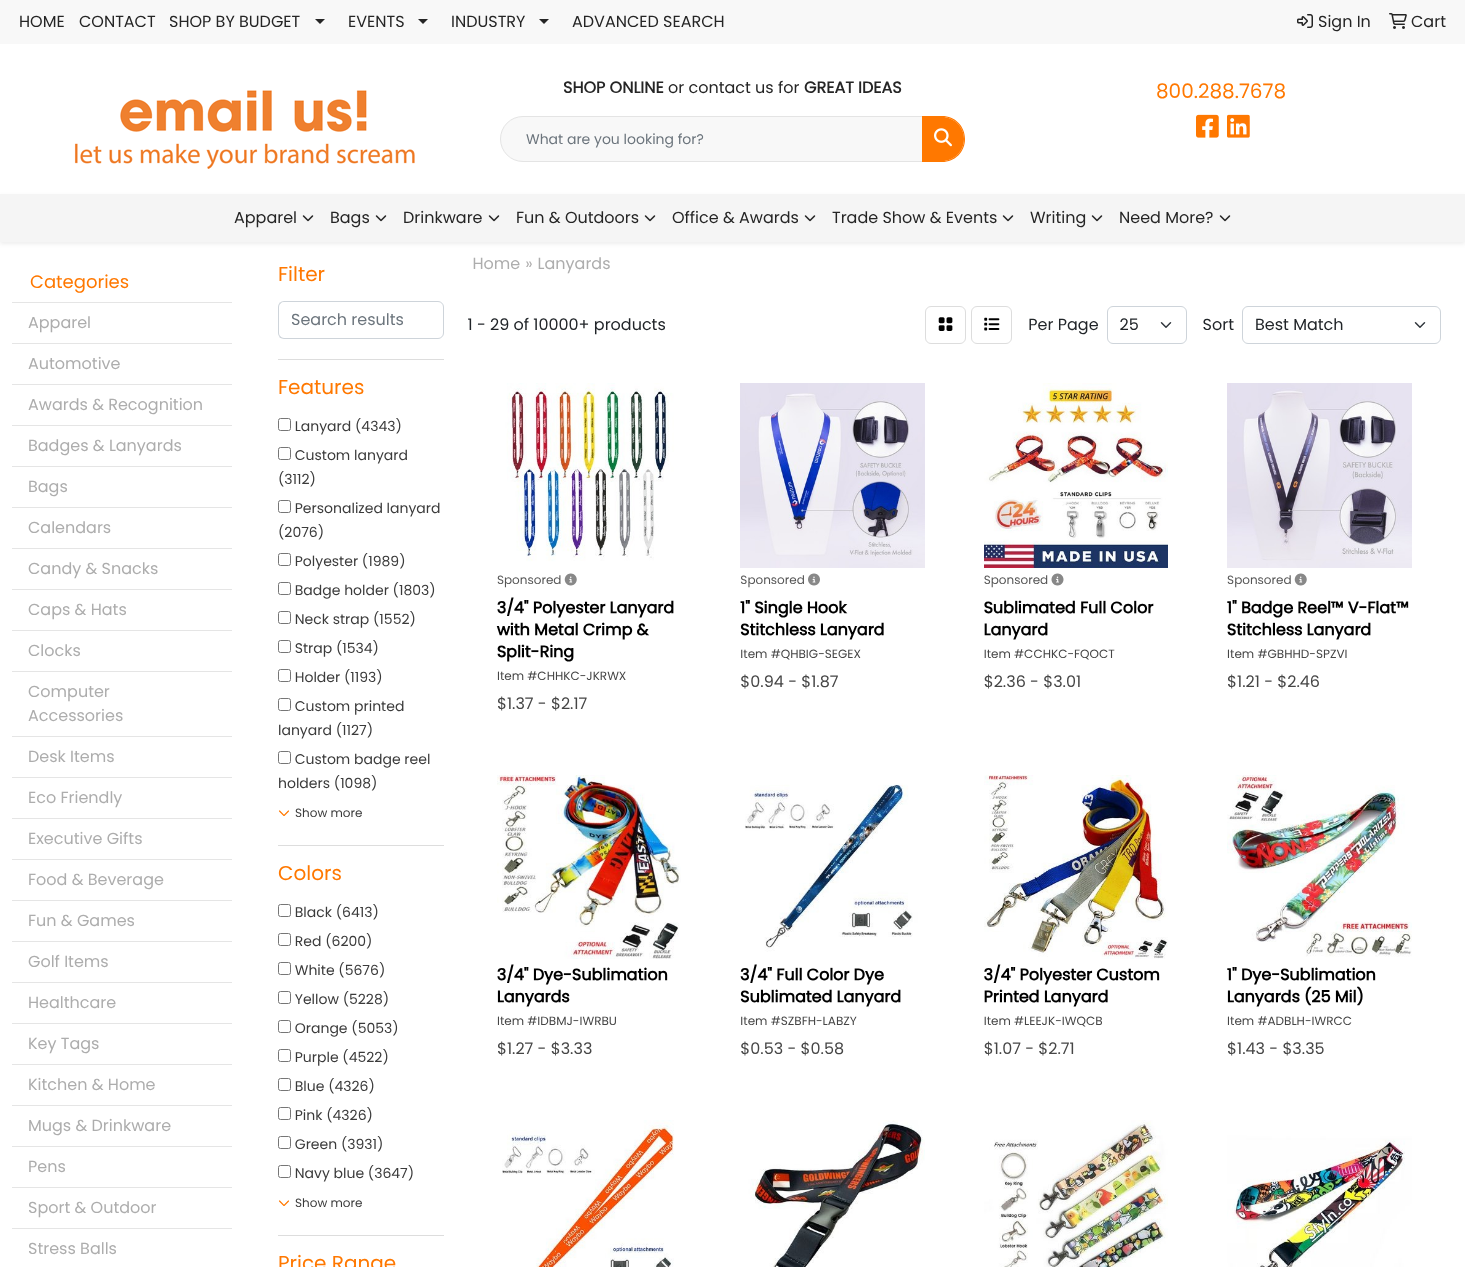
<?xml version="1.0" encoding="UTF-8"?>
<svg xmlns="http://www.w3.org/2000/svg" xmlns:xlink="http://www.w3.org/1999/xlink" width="1465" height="1267">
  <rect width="100%" height="100%" fill="#ffffff" />
  <rect width="1465" height="44" fill="#f8f8f8" />
  <path d="M 315 19 h 10 l -5 5 z" fill="#252525" />
  <path d="M 418 19 h 10 l -5 5 z" fill="#252525" />
  <path d="M 539 19 h 10 l -5 5 z" fill="#252525" />
  <image x="1297" y="14" width="16" height="14" xlink:href="image1.png" />
  <image x="1389" y="13" width="18" height="16" xlink:href="image2.png" />
  <image x="74" y="90" width="341" height="79" xlink:href="image3.png" />
  <path d="M 523 116.5 h 399.5 v 45 h -399.5 c -12.5 0 -22.5 -10 -22.5 -22.5 c 0 -12.5 10 -22.5 22.5 -22.5 z" fill="#f8f8f8" stroke="#e4e4e4" />
  <path d="M 922 117 h 20 c 12 0 22 10 22 22 c 0 12 -10 22 -22 22 h -20 z" fill="#ff7800" />
  <path d="M 922 116 h 20 c 13 0 23 10 23 23 c 0 13 -10 23 -23 23 h -20 z m 0 1 h 20 c 12 0 22 10 22 22 c 0 12 -10 22 -22 22 h -20 z" fill="#ff7800" fill-rule="evenodd" />
  <image x="934" y="128" width="18" height="19" xlink:href="image4.png" />
  <image x="1196" y="114" width="23" height="24" xlink:href="image5.png" />
  <image x="1227" y="114" width="23" height="24" xlink:href="image6.png" />
  <rect y="196" width="1465" height="48" fill="#000000" fill-opacity="0.07" filter="blur(2px)" />
  <rect y="194" width="1465" height="48" fill="#f5f5f5" />
  <image x="302" y="215" width="12" height="7" xlink:href="image7.png" />
  <image x="375" y="215" width="12" height="7" xlink:href="image7.png" />
  <image x="488" y="215" width="12" height="7" xlink:href="image7.png" />
  <image x="644" y="215" width="12" height="7" xlink:href="image7.png" />
  <image x="804" y="215" width="12" height="7" xlink:href="image7.png" />
  <image x="1002" y="215" width="12" height="7" xlink:href="image7.png" />
  <image x="1091" y="215" width="12" height="7" xlink:href="image7.png" />
  <image x="1219" y="215" width="12" height="7" xlink:href="image7.png" />
  <rect x="12" y="302" width="220" height="1" fill="#e5e5e5" />
  <rect x="12" y="343" width="220" height="1" fill="#e5e5e5" />
  <rect x="12" y="384" width="220" height="1" fill="#e5e5e5" />
  <rect x="12" y="425" width="220" height="1" fill="#e5e5e5" />
  <rect x="12" y="466" width="220" height="1" fill="#e5e5e5" />
  <rect x="12" y="507" width="220" height="1" fill="#e5e5e5" />
  <rect x="12" y="548" width="220" height="1" fill="#e5e5e5" />
  <rect x="12" y="589" width="220" height="1" fill="#e5e5e5" />
  <rect x="12" y="630" width="220" height="1" fill="#e5e5e5" />
  <rect x="12" y="671" width="220" height="1" fill="#e5e5e5" />
  <rect x="12" y="736" width="220" height="1" fill="#e5e5e5" />
  <rect x="12" y="777" width="220" height="1" fill="#e5e5e5" />
  <rect x="12" y="818" width="220" height="1" fill="#e5e5e5" />
  <rect x="12" y="859" width="220" height="1" fill="#e5e5e5" />
  <rect x="12" y="900" width="220" height="1" fill="#e5e5e5" />
  <rect x="12" y="941" width="220" height="1" fill="#e5e5e5" />
  <rect x="12" y="982" width="220" height="1" fill="#e5e5e5" />
  <rect x="12" y="1023" width="220" height="1" fill="#e5e5e5" />
  <rect x="12" y="1064" width="220" height="1" fill="#e5e5e5" />
  <rect x="12" y="1105" width="220" height="1" fill="#e5e5e5" />
  <rect x="12" y="1146" width="220" height="1" fill="#e5e5e5" />
  <rect x="12" y="1187" width="220" height="1" fill="#e5e5e5" />
  <rect x="12" y="1228" width="220" height="1" fill="#e5e5e5" />
  <image x="278" y="257" width="1163" height="1010" xlink:href="image8.png" />
  <text x="19" y="27" style="font-family: Poppins; font-size: 16px; fill: #252525">HOME</text>
  <text x="79" y="27" style="font-family: Poppins; font-size: 16px; fill: #252525">CONTACT</text>
  <text x="169" y="27" style="font-family: Poppins; font-size: 16px; fill: #252525">SHOP BY BUDGET</text>
  <text x="348" y="27" style="font-family: Poppins; font-size: 16px; fill: #252525">EVENTS</text>
  <text x="451" y="27" style="font-family: Poppins; font-size: 16px; fill: #252525">INDUSTRY</text>
  <text x="572" y="27" style="font-family: Poppins; font-size: 16px; fill: #252525">ADVANCED SEARCH</text>
  <text x="1318" y="27" style="font-family: Poppins; font-size: 16px; fill: #252525">Sign In</text>
  <text x="1411" y="27" style="font-family: Poppins; font-size: 16px; fill: #252525">Cart</text>
  <text x="563" y="93" style="font-family: Poppins; font-size: 16px; font-weight: bold; fill: #252525">SHOP ONLINE</text>
  <text x="668" y="93" style="font-family: Poppins; font-size: 16px; fill: #252525">or contact us for</text>
  <text x="804" y="93" style="font-family: Poppins; font-size: 16px; font-weight: bold; fill: #252525">GREAT IDEAS</text>
  <text x="526" y="144" style="font-family: Poppins; font-size: 14px; fill: #6c757d">What are you looking for?</text>
  <text x="1156" y="98" style="font-family: Poppins; font-size: 20px; fill: #ff7800">800.288.7678</text>
  <text x="234" y="223" style="font-family: Poppins; font-size: 16px; fill: #252525">Apparel</text>
  <text x="330" y="223" style="font-family: Poppins; font-size: 16px; fill: #252525">Bags</text>
  <text x="403" y="223" style="font-family: Poppins; font-size: 16px; fill: #252525">Drinkware</text>
  <text x="516" y="223" style="font-family: Poppins; font-size: 16px; fill: #252525">Fun &amp; Outdoors</text>
  <text x="672" y="223" style="font-family: Poppins; font-size: 16px; fill: #252525">Office &amp; Awards</text>
  <text x="832" y="223" style="font-family: Poppins; font-size: 16px; fill: #252525">Trade Show &amp; Events</text>
  <text x="1030" y="223" style="font-family: Poppins; font-size: 16px; fill: #252525">Writing</text>
  <text x="1119" y="223" style="font-family: Poppins; font-size: 16px; fill: #252525">Need More?</text>
  <text x="30" y="288" style="font-family: Poppins; font-size: 18px; fill: #ff7800">Categories</text>
  <text x="28" y="328" style="font-family: Poppins; font-size: 16px; fill: #adadad">Apparel</text>
  <text x="28" y="369" style="font-family: Poppins; font-size: 16px; fill: #adadad">Automotive</text>
  <text x="28" y="410" style="font-family: Poppins; font-size: 16px; fill: #adadad">Awards &amp; Recognition</text>
  <text x="28" y="451" style="font-family: Poppins; font-size: 16px; fill: #adadad">Badges &amp; Lanyards</text>
  <text x="28" y="492" style="font-family: Poppins; font-size: 16px; fill: #adadad">Bags</text>
  <text x="28" y="533" style="font-family: Poppins; font-size: 16px; fill: #adadad">Calendars</text>
  <text x="28" y="574" style="font-family: Poppins; font-size: 16px; fill: #adadad">Candy &amp; Snacks</text>
  <text x="28" y="615" style="font-family: Poppins; font-size: 16px; fill: #adadad">Caps &amp; Hats</text>
  <text x="28" y="656" style="font-family: Poppins; font-size: 16px; fill: #adadad">Clocks</text>
  <text x="28" y="697" style="font-family: Poppins; font-size: 16px; fill: #adadad">Computer</text>
  <text x="28" y="721" style="font-family: Poppins; font-size: 16px; fill: #adadad">Accessories</text>
  <text x="28" y="762" style="font-family: Poppins; font-size: 16px; fill: #adadad">Desk Items</text>
  <text x="28" y="803" style="font-family: Poppins; font-size: 16px; fill: #adadad">Eco Friendly</text>
  <text x="28" y="844" style="font-family: Poppins; font-size: 16px; fill: #adadad">Executive Gifts</text>
  <text x="28" y="885" style="font-family: Poppins; font-size: 16px; fill: #adadad">Food &amp; Beverage</text>
  <text x="28" y="926" style="font-family: Poppins; font-size: 16px; fill: #adadad">Fun &amp; Games</text>
  <text x="28" y="967" style="font-family: Poppins; font-size: 16px; fill: #adadad">Golf Items</text>
  <text x="28" y="1008" style="font-family: Poppins; font-size: 16px; fill: #adadad">Healthcare</text>
  <text x="28" y="1049" style="font-family: Poppins; font-size: 16px; fill: #adadad">Key Tags</text>
  <text x="28" y="1090" style="font-family: Poppins; font-size: 16px; fill: #adadad">Kitchen &amp; Home</text>
  <text x="28" y="1131" style="font-family: Poppins; font-size: 16px; fill: #adadad">Mugs &amp; Drinkware</text>
  <text x="28" y="1172" style="font-family: Poppins; font-size: 16px; fill: #adadad">Pens</text>
  <text x="28" y="1213" style="font-family: Poppins; font-size: 16px; fill: #adadad">Sport &amp; Outdoor</text>
  <text x="28" y="1254" style="font-family: Poppins; font-size: 16px; fill: #adadad">Stress Balls</text>
</svg>
